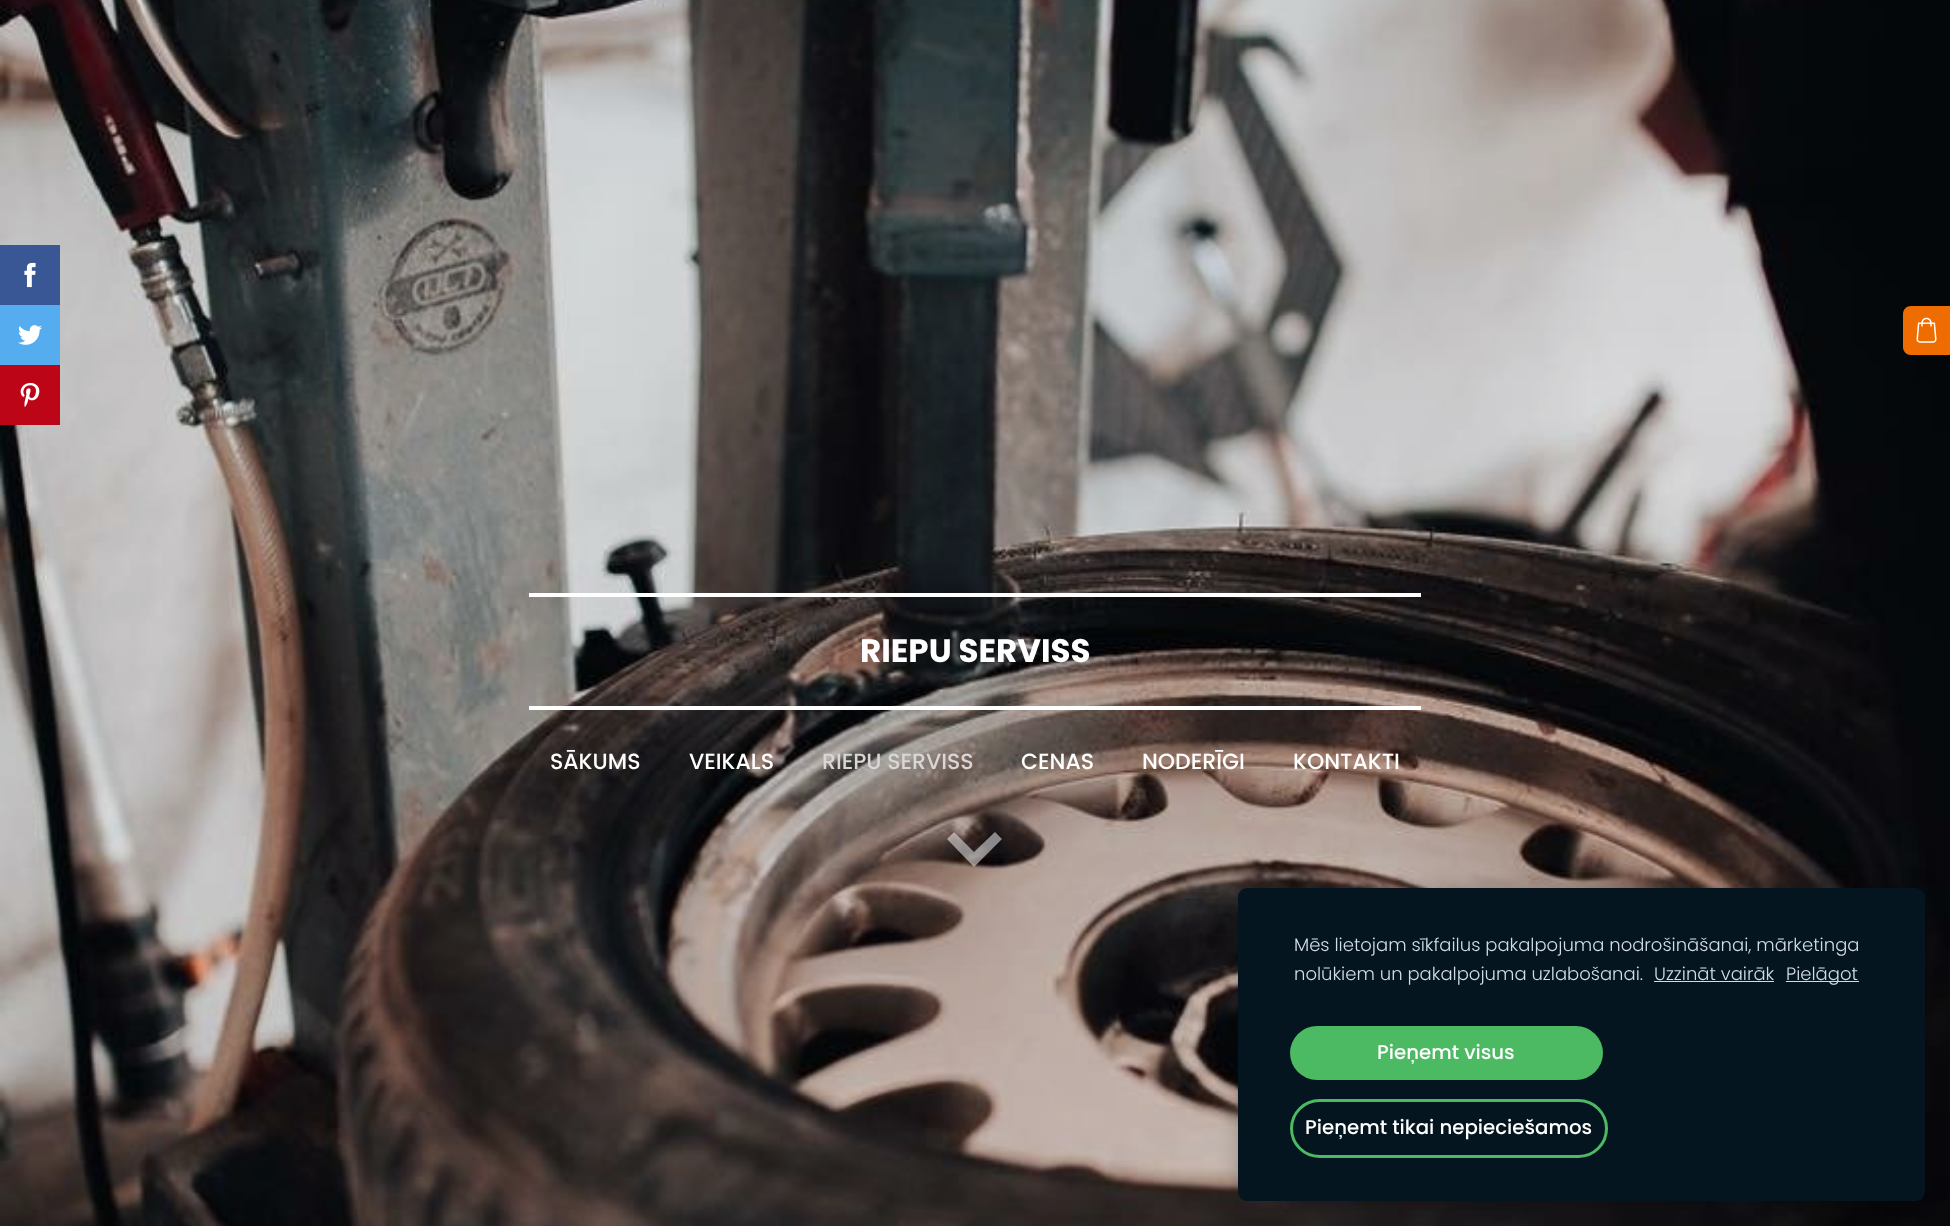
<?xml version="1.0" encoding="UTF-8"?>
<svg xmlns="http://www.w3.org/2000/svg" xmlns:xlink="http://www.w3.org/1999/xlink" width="1950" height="1226">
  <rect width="100%" height="100%" fill="#ffffff" />
  <image x="0" y="0" width="1950" height="1226" xlink:href="image1.png" />
  <rect y="245" width="60" height="60" fill="#3a5795" />
  <image x="24" y="262" width="12" height="26" xlink:href="image2.png" />
  <rect y="305" width="60" height="60" fill="#55acee" />
  <image x="18" y="325" width="24" height="20" xlink:href="image3.png" />
  <rect y="365" width="60" height="60" fill="#bc0618" />
  <image x="20" y="382" width="20" height="25" xlink:href="image4.png" />
  <path d="M 1911 306 h 39 v 49 h -39 c -4.5 0 -8 -3.5 -8 -8 v -33 c 0 -4.5 3.5 -8 8 -8 z" fill="#ef6c00" />
  <image x="1916" y="317" width="21" height="26" xlink:href="image5.png" />
  <rect x="529" y="593" width="892" height="4" fill="#ffffff" />
  <rect x="529" y="706" width="892" height="4" fill="#ffffff" />
  <path d="M 974 852 l 21 -20 l 7 7 l -28 28 l -27 -28 l 7 -7 z" fill="#ffffff" fill-opacity="0.5" />
  <rect x="1238" y="888" width="687" height="313" rx="9" fill="#000000" fill-opacity="0.2" filter="blur(10.5px)" />
  <rect x="1238" y="888" width="687" height="313" rx="9" fill="#04151f" />
  <rect x="1654" y="981" width="120" height="1" fill="#d2dce6" />
  <rect x="1786" y="981" width="73" height="1" fill="#d2dce6" />
  <rect x="1290" y="1026" width="313" height="54" rx="27" fill="#4cb963" />
  <rect x="1291.5" y="1100.5" width="315" height="56" rx="28" fill="none" stroke="#4cb963" stroke-width="3" />
  <text x="860" y="662" style="font-family: Poppins; font-size: 32.5px; font-weight: bold; fill: #ffffff">RIEPU SERVISS</text>
  <text x="550" y="769" style="font-family: Poppins; font-size: 22px; font-weight: 500; fill: #ffffff">SĀKUMS</text>
  <text x="689" y="769" style="font-family: Poppins; font-size: 22px; font-weight: 500; fill: #ffffff">VEIKALS</text>
  <text x="822" y="769" style="font-family: Poppins; font-size: 22px; font-weight: 500; fill: #d9d6d5">RIEPU SERVISS</text>
  <text x="1021" y="769" style="font-family: Poppins; font-size: 22px; font-weight: 500; fill: #ffffff">CENAS</text>
  <text x="1142" y="769" style="font-family: Poppins; font-size: 22px; font-weight: 500; fill: #ffffff">NODERĪGI</text>
  <text x="1293" y="769" style="font-family: Poppins; font-size: 22px; font-weight: 500; fill: #ffffff">KONTAKTI</text>
  <text x="1294" y="951" style="font-family: Poppins; font-size: 18px; font-weight: 300; fill: #d2dce6">Mēs lietojam sīkfailus pakalpojuma nodrošināšanai, mārketinga</text>
  <text x="1294" y="980" style="font-family: Poppins; font-size: 18px; font-weight: 300; fill: #d2dce6">nolūkiem un pakalpojuma uzlabošanai.</text>
  <text x="1654" y="980" style="font-family: Poppins; font-size: 18px; font-weight: 300; fill: #d2dce6">Uzzināt vairāk</text>
  <text x="1786" y="980" style="font-family: Poppins; font-size: 18px; font-weight: 300; fill: #d2dce6">Pielāgot</text>
  <text x="1377" y="1059" style="font-family: Poppins; font-size: 19.75px; font-weight: 500; fill: #ffffff">Pieņemt visus</text>
  <text x="1305" y="1134" style="font-family: Poppins; font-size: 19.75px; font-weight: 500; fill: #ffffff">Pieņemt tikai nepieciešamos</text>
</svg>
